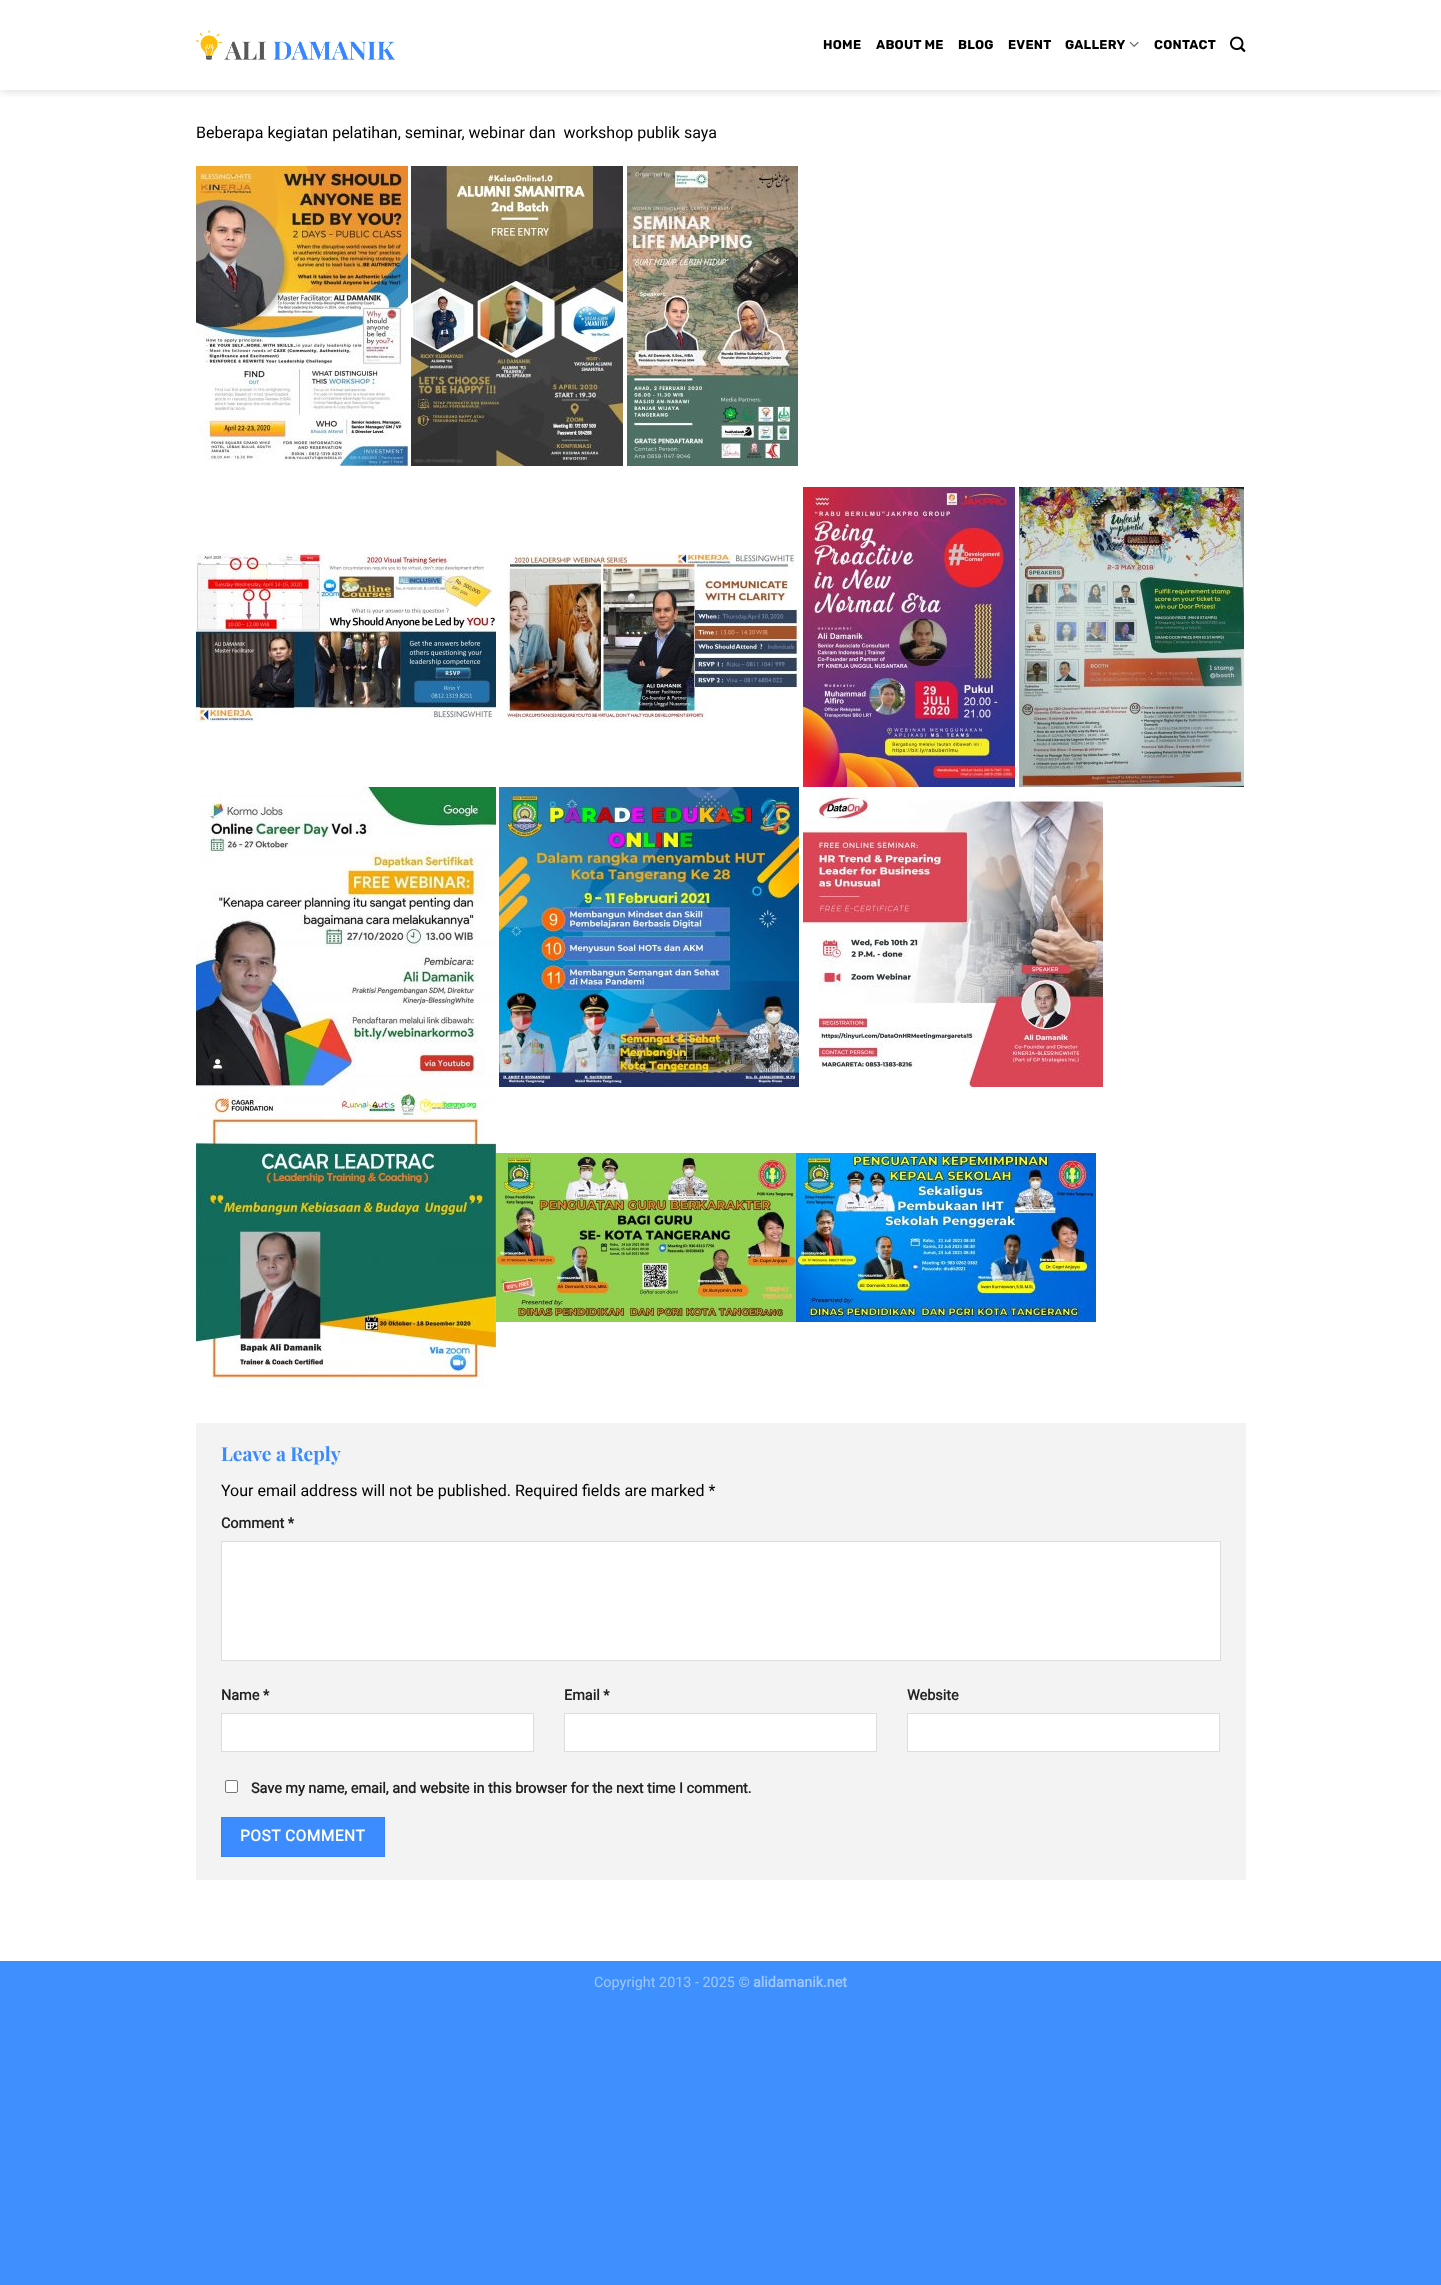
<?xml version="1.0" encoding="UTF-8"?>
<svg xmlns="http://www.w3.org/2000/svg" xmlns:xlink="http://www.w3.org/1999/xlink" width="1441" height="2285">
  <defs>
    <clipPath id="clip1"><rect x="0" y="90" width="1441" height="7" /></clipPath>
  </defs>
  <rect width="100%" height="100%" fill="#3e8fff" />
  <rect width="1441" height="1961" fill="#ffffff" />
  <g clip-path="url(#clip1)">
    <rect x="1" y="1" width="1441" height="90" fill="#000000" fill-opacity="0.15" filter="blur(5px)" />
  </g>
  <image x="196" y="30" width="199" height="30" xlink:href="image1.png" />
  <image x="1129" y="41" width="10" height="6" xlink:href="image2.png" />
  <image x="1230" y="36" width="16" height="16" xlink:href="image3.png" />
  <image x="196" y="166" width="212" height="300" xlink:href="image4.png" />
  <image x="411" y="166" width="212" height="300" xlink:href="image5.png" />
  <image x="627" y="166" width="171" height="300" xlink:href="image6.png" />
  <image x="196" y="553" width="300" height="169" xlink:href="image7.png" />
  <image x="499" y="553" width="300" height="169" xlink:href="image8.png" />
  <image x="803" y="487" width="212" height="300" xlink:href="image9.png" />
  <image x="1019" y="487" width="225" height="300" xlink:href="image10.png" />
  <image x="196" y="787" width="300" height="300" xlink:href="image11.png" />
  <image x="499" y="787" width="300" height="300" xlink:href="image12.png" />
  <image x="803" y="787" width="300" height="300" xlink:href="image13.png" />
  <image x="196" y="1087" width="300" height="300" xlink:href="image14.png" />
  <image x="496" y="1153" width="300" height="169" xlink:href="image15.png" />
  <image x="796" y="1153" width="300" height="169" xlink:href="image16.png" />
  <rect x="196" y="1423" width="1050" height="457" fill="#f3f3f3" />
  <rect x="221.5" y="1541.5" width="999" height="119" fill="#ffffff" stroke="#dddddd" />
  <rect x="221.5" y="1713.5" width="312" height="38" fill="#ffffff" stroke="#dddddd" />
  <rect x="564.5" y="1713.5" width="312" height="38" fill="#ffffff" stroke="#dddddd" />
  <rect x="907.5" y="1713.5" width="312" height="38" fill="#ffffff" stroke="#dddddd" />
  <rect x="225.5" y="1780.5" width="12" height="12" rx="1.5" fill="#ffffff" stroke="#767676" />
  <rect x="221.5" y="1817.5" width="163" height="39" fill="#3c8bff" stroke="#3984f2" />
  <text x="823" y="49" style="font-family: Rubik; font-size: 12.75px; font-weight: bold; letter-spacing: 0.25px; fill: #000000">HOME</text>
  <text x="876" y="49" style="font-family: Rubik; font-size: 12.75px; font-weight: bold; letter-spacing: 0.25px; fill: #000000">ABOUT ME</text>
  <text x="958" y="49" style="font-family: Rubik; font-size: 12.75px; font-weight: bold; letter-spacing: 0.25px; fill: #000000">BLOG</text>
  <text x="1008" y="49" style="font-family: Rubik; font-size: 12.75px; font-weight: bold; letter-spacing: 0.25px; fill: #000000">EVENT</text>
  <text x="1065" y="49" style="font-family: Rubik; font-size: 12.75px; font-weight: bold; letter-spacing: 0.25px; fill: #000000">GALLERY</text>
  <text x="1154" y="49" style="font-family: Rubik; font-size: 12.75px; font-weight: bold; letter-spacing: 0.25px; fill: #000000">CONTACT</text>
  <text x="196" y="138" style="font-family: Roboto; font-size: 16px; fill: #000000" xml:space="preserve">Beberapa kegiatan pelatihan, seminar, webinar dan  workshop publik saya</text>
  <text x="221" y="1461" style="font-family: Playfair Display; font-size: 19.25px; font-weight: bold; fill: #3c8aff">Leave a Reply</text>
  <text x="221" y="1496" style="font-family: Roboto; font-size: 16px; fill: #000000">Your email address will not be published. Required fields are marked *</text>
  <text x="221" y="1528" style="font-family: Roboto; font-size: 14.4px; font-weight: bold; fill: #222222">Comment *</text>
  <text x="221" y="1700" style="font-family: Roboto; font-size: 14.4px; font-weight: bold; fill: #222222">Name *</text>
  <text x="564" y="1700" style="font-family: Roboto; font-size: 14.4px; font-weight: bold; fill: #222222">Email *</text>
  <text x="907" y="1700" style="font-family: Roboto; font-size: 14.4px; font-weight: bold; fill: #222222">Website</text>
  <text x="251" y="1793" style="font-family: Roboto; font-size: 14.4px; font-weight: bold; fill: #222222">Save my name, email, and website in this browser for the next time I comment.</text>
  <text x="240" y="1841" style="font-family: Roboto; font-size: 15.5px; font-weight: bold; letter-spacing: 0.5px; fill: #ffffff">POST COMMENT</text>
  <text x="594" y="1987" style="font-family: Roboto; font-size: 14.4px; fill: #9fc7ff">Copyright 2013 - 2025 ©</text>
  <text x="753" y="1987" style="font-family: Roboto; font-size: 14.4px; font-weight: bold; fill: #9fc7ff">alidamanik.net</text>
</svg>
